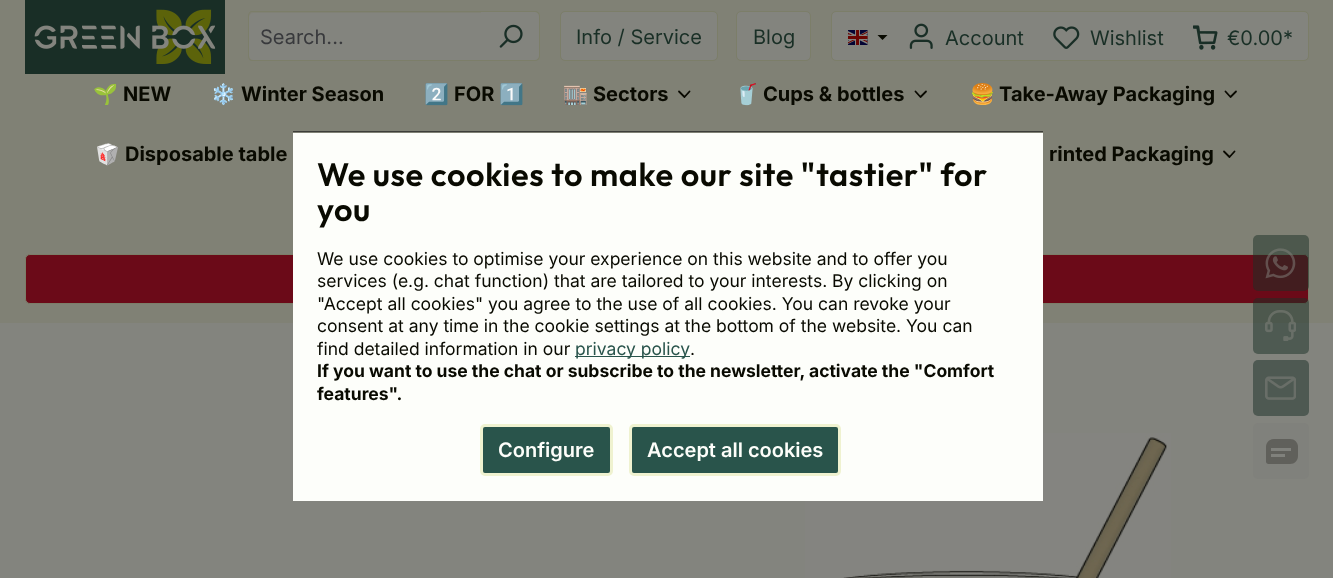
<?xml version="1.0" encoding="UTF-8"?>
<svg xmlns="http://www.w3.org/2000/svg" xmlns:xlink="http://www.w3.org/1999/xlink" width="1333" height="578">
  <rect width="100%" height="100%" fill="#83847e" />
  <rect width="1333" height="323" fill="#808175" />
  <rect x="25.5" y="254.5" width="1283" height="49" rx="4.5" fill="#6b0a18" stroke="#7c7e69" />
  <image x="25" y="0" width="200" height="74" xlink:href="image1.png" />
  <path d="M 253 13 h 230 v 47 h -230 c -2 0 -4 -2 -4 -4 v -39 c 0 -2 2 -4 4 -4 z" fill="#83847e" />
  <path d="M 252 11 h 230 v 50 h -230 c -2 0 -4 -2 -4 -5 v -40 c 0 -3 2 -5 4 -5 z m 0 1 h 230 v 48 h -230 c -2 0 -3 -2 -3 -4 v -40 c 0 -2 1 -4 3 -4 z" fill="#7c7e69" fill-rule="evenodd" />
  <path d="M 481 11 h 54 c 3 0 5 2 5 5 v 40 c 0 3 -2 5 -5 5 h -54 z" fill="#83847e" />
  <path d="M 481 11 h 54 c 3 0 5 2 5 5 v 40 c 0 3 -2 5 -5 5 h -54 z m 0 1 h 54 c 2 0 4 2 4 4 v 40 c 0 2 -2 4 -4 4 h -54 z" fill="#7c7e69" fill-rule="evenodd" />
  <image x="499" y="24" width="24" height="24" xlink:href="image2.png" />
  <rect x="560.5" y="11.5" width="157" height="49" rx="4.5" fill="#83847e" stroke="#7c7e69" />
  <rect x="736.5" y="11.5" width="74" height="49" rx="4.5" fill="#83847e" stroke="#7c7e69" />
  <rect x="831.5" y="11.5" width="477" height="49" rx="4.5" fill="#83847e" stroke="#7c7e69" />
  <image x="848" y="30" width="20" height="15" xlink:href="image3.png" />
  <path d="M 877.5 35 h 10 l -5 5 z" fill="#090a01" />
  <image x="909" y="23" width="24" height="26" xlink:href="image4.png" />
  <image x="1053" y="26" width="27" height="23" xlink:href="image5.png" />
  <image x="1193" y="25" width="25" height="25" xlink:href="image6.png" />
  <path d="M 679 91.5 l 5.5 5.5 l 5 -5.5" fill="none" stroke="#090901" stroke-width="1.8" stroke-linecap="round" stroke-linejoin="round" />
  <path d="M 915.5 91.5 l 5 5.5 l 5.5 -5.5" fill="none" stroke="#090901" stroke-width="1.8" stroke-linecap="round" stroke-linejoin="round" />
  <path d="M 1225.5 91.5 l 5 5.5 l 5.5 -5.5" fill="none" stroke="#090901" stroke-width="1.8" stroke-linecap="round" stroke-linejoin="round" />
  <path d="M 1224 151.5 l 5.5 5.5 l 5 -5.5" fill="none" stroke="#090901" stroke-width="1.8" stroke-linecap="round" stroke-linejoin="round" />
  <rect x="293" y="131" width="750" height="1" fill="#3d3d39" />
  <image x="805" y="433" width="366" height="145" xlink:href="image10.png" />
  <rect x="293" y="133" width="750" height="368" fill="#fdfefa" />
  <rect x="575" y="356" width="115" height="1" fill="#29544b" />
  <rect x="481.5" y="425.5" width="130" height="49" rx="3.5" fill="#29544b" stroke="#eff2d0" stroke-width="3" />
  <rect x="630.5" y="425.5" width="209" height="49" rx="3.5" fill="#29544b" stroke="#eff2d0" stroke-width="3" />
  <rect x="1253" y="235" width="56" height="56" rx="5" fill="#192f26" fill-opacity="0.5" />
  <image x="1265" y="248" width="31" height="31" xlink:href="image7.png" />
  <rect x="1253" y="298" width="56" height="56" rx="5" fill="#192f26" fill-opacity="0.5" />
  <image x="1265" y="310" width="31" height="31" xlink:href="image8.png" />
  <rect x="1253" y="360" width="56" height="56" rx="5" fill="#4e5952" />
  <image x="1265" y="376" width="31" height="24" xlink:href="image9.png" />
  <rect x="1253" y="423" width="56" height="56" rx="5" fill="#80817c" />
  <path d="M 1274 439 h 16 c 4.5 0 8 3.5 8 8 v 9 c 0 4.5 -3.5 8 -8 8 h -21.5 c -1.5 0 -2.5 -1 -2.5 -2.5 v -14.5 c 0 -4.5 3.5 -8 8 -8 z" fill="#60605b" />
  <rect x="1271" y="448" width="20" height="3" fill="#80817c" />
  <rect x="1271" y="454" width="14" height="3" fill="#80817c" />
  <text x="260" y="44" style="font-family: Inter; font-size: 20px; fill: #38393c">Search...</text>
  <text x="576" y="44" style="font-family: Inter; font-size: 20px; fill: #192f26">Info / Service</text>
  <text x="753" y="44" style="font-family: Inter; font-size: 20px; fill: #192f26">Blog</text>
  <text x="945" y="45" style="font-family: Inter; font-size: 20px; fill: #192f26">Account</text>
  <text x="1090" y="45" style="font-family: Inter; font-size: 20px; fill: #192f26">Wishlist</text>
  <text x="1227" y="45" style="font-family: Inter; font-size: 20px; fill: #192f26">€0.00*</text>
  <text x="93" y="101" style="font-family: Noto Color Emoji; font-size: 20px; font-weight: bold; fill: #090a01">🌱</text>
  <text x="123" y="101" style="font-family: Inter; font-size: 20px; font-weight: bold; fill: #090a01">NEW</text>
  <text x="211" y="101" style="font-family: Noto Color Emoji; font-size: 20px; font-weight: bold; fill: #090a01">❄️</text>
  <text x="241" y="101" style="font-family: Inter; font-size: 20px; font-weight: bold; fill: #090a01">Winter Season</text>
  <text x="424" y="101" style="font-family: Noto Color Emoji; font-size: 20px; font-weight: bold; fill: #090a01">2️⃣</text>
  <text x="454" y="101" style="font-family: Inter; font-size: 20px; font-weight: bold; fill: #090a01">FOR</text>
  <text x="499" y="101" style="font-family: Noto Color Emoji; font-size: 20px; font-weight: bold; fill: #090a01">1️⃣</text>
  <text x="563" y="101" style="font-family: Noto Color Emoji; font-size: 20px; font-weight: bold; fill: #090a01">🏬</text>
  <text x="593" y="101" style="font-family: Inter; font-size: 20px; font-weight: bold; fill: #090a01">Sectors</text>
  <text x="734" y="101" style="font-family: Noto Color Emoji; font-size: 20px; font-weight: bold; fill: #090a01">🥤</text>
  <text x="763" y="101" style="font-family: Inter; font-size: 20px; font-weight: bold; fill: #090a01">Cups &amp; bottles</text>
  <text x="970" y="101" style="font-family: Noto Color Emoji; font-size: 20px; font-weight: bold; fill: #090a01">🍔</text>
  <text x="999" y="101" style="font-family: Inter; font-size: 20px; font-weight: bold; fill: #090a01">Take-Away Packaging</text>
  <text x="95" y="161" style="font-family: Noto Color Emoji; font-size: 20px; font-weight: bold; fill: #090a01">🥡</text>
  <text x="125" y="161" style="font-family: Inter; font-size: 20px; font-weight: bold; fill: #090a01">Disposable table</text>
  <text x="1049" y="161" style="font-family: Inter; font-size: 20px; font-weight: bold; fill: #090a01">rinted Packaging</text>
  <text x="317" y="186" style="font-family: Outfit; font-size: 32.5px; font-weight: 600; letter-spacing: 0.6px; fill: #090a01">We use cookies to make our site "tastier" for</text>
  <text x="317" y="221" style="font-family: Outfit; font-size: 32.5px; font-weight: 600; letter-spacing: 0.6px; fill: #090a01">you</text>
  <text x="317" y="265" style="font-family: Inter; font-size: 17.5px; fill: #090a01">We use cookies to optimise your experience on this website and to offer you</text>
  <text x="317" y="287" style="font-family: Inter; font-size: 17.5px; fill: #090a01">services (e.g. chat function) that are tailored to your interests. By clicking on</text>
  <text x="317" y="310" style="font-family: Inter; font-size: 17.5px; fill: #090a01">"Accept all cookies" you agree to the use of all cookies. You can revoke your</text>
  <text x="317" y="332" style="font-family: Inter; font-size: 17.5px; fill: #090a01">consent at any time in the cookie settings at the bottom of the website. You can</text>
  <text x="317" y="355" style="font-family: Inter; font-size: 17.5px; fill: #090a01">find detailed information in our</text>
  <text x="575" y="355" style="font-family: Inter; font-size: 17.5px; fill: #29544b">privacy policy</text>
  <text x="690" y="355" style="font-family: Inter; font-size: 17.5px; fill: #090a01">.</text>
  <text x="317" y="377" style="font-family: Inter; font-size: 17.5px; font-weight: bold; fill: #090a01">If you want to use the chat or subscribe to the newsletter, activate the "Comfort</text>
  <text x="317" y="400" style="font-family: Inter; font-size: 17.5px; font-weight: bold; fill: #090a01">features".</text>
  <text x="498" y="457" style="font-family: Inter; font-size: 20px; font-weight: 600; fill: #fdfefa">Configure</text>
  <text x="647" y="457" style="font-family: Inter; font-size: 20px; font-weight: 600; fill: #fdfefa">Accept all cookies</text>
</svg>
